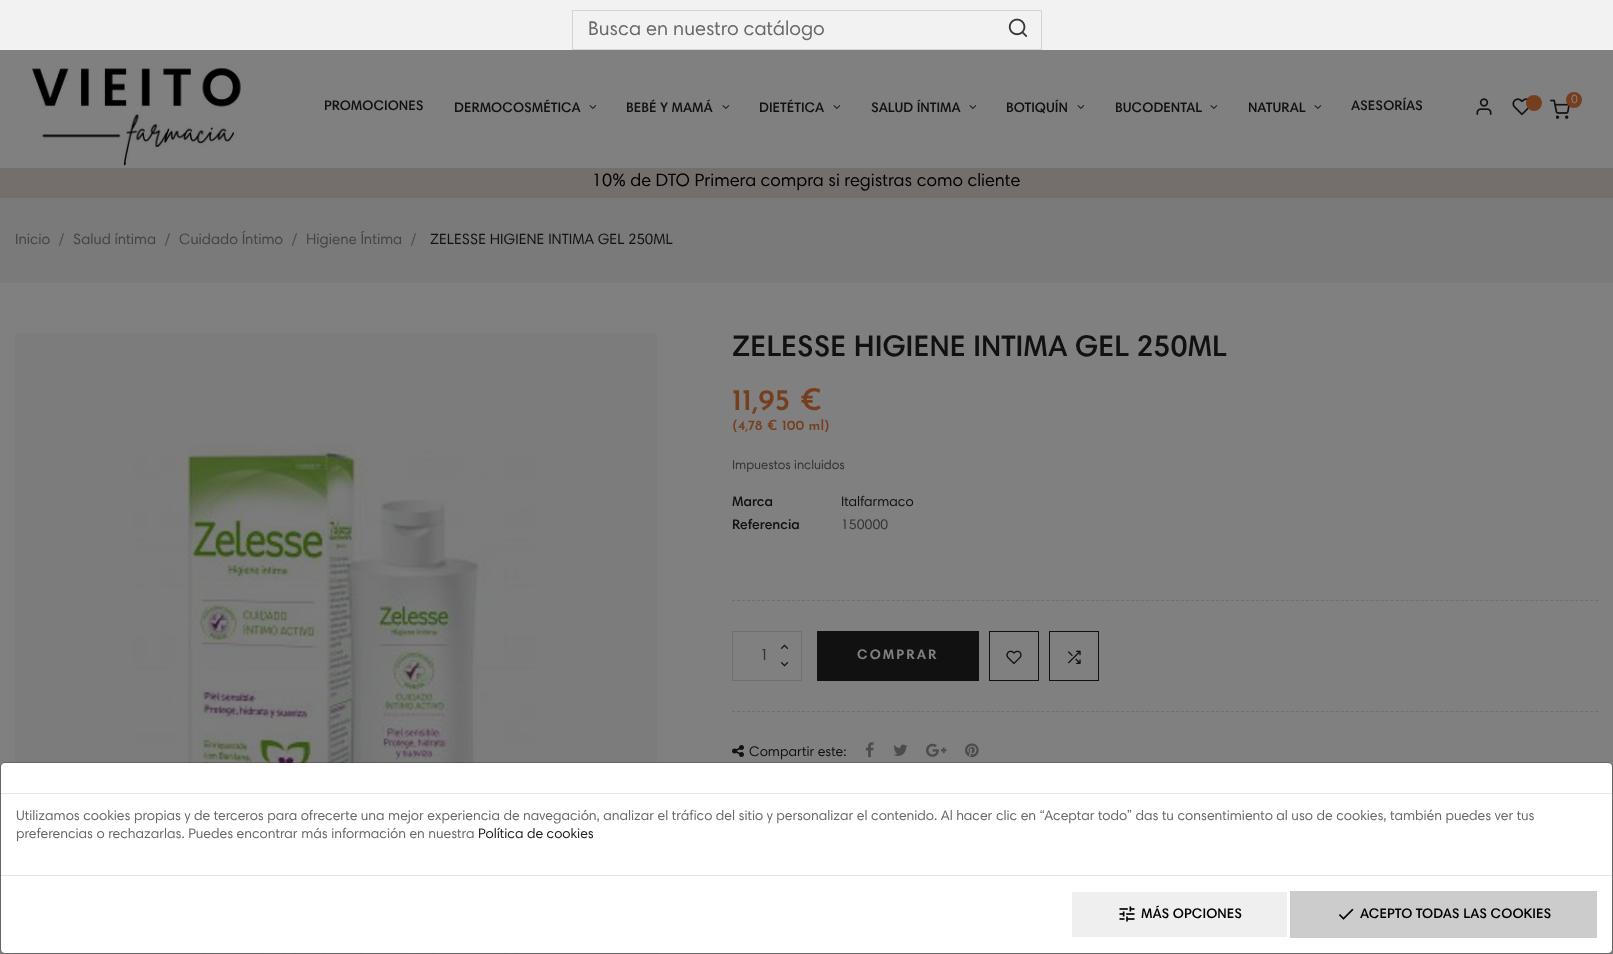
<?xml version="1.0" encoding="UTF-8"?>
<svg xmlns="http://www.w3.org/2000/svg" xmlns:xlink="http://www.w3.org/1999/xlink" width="1613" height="954">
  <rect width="100%" height="100%" fill="#808080" />
  <rect width="1613" height="50" fill="#f2f2f2" />
  <rect x="572.5" y="10.5" width="469" height="39" fill="none" stroke="#d4d4d4" />
  <image x="1008" y="18" width="20" height="19" xlink:href="image1.png" />
  <image x="32" y="68" width="209" height="98" xlink:href="image2.png" />
  <image x="589" y="105" width="8" height="4" xlink:href="image3.png" />
  <image x="722" y="105" width="8" height="4" xlink:href="image3.png" />
  <image x="833" y="105" width="8" height="4" xlink:href="image3.png" />
  <image x="969" y="105" width="8" height="4" xlink:href="image3.png" />
  <image x="1077" y="105" width="8" height="4" xlink:href="image3.png" />
  <image x="1210" y="105" width="8" height="4" xlink:href="image3.png" />
  <image x="1314" y="105" width="8" height="4" xlink:href="image3.png" />
  <image x="1476" y="98" width="16" height="17" xlink:href="image4.png" />
  <image x="1512" y="98" width="17" height="18" xlink:href="image5.png" />
  <circle cx="1534" cy="103" r="8" fill="#753f1f" />
  <image x="1550" y="99" width="20" height="20" xlink:href="image6.png" />
  <circle cx="1574" cy="100" r="8" fill="#753f1f" />
  <rect y="168" width="1613" height="30" fill="#746f6d" />
  <rect y="198" width="1613" height="85" fill="#7a7a7a" />
  <image x="15" y="333" width="642" height="621" xlink:href="image7.png" />
  <path d="M 732 600.5 h 866" fill="none" stroke="#6f6f6f" stroke-dasharray="3 1.99" />
  <path d="M 732 711.5 h 866" fill="none" stroke="#6f6f6f" stroke-dasharray="3 1.99" />
  <rect x="732.5" y="631.5" width="69" height="49" fill="none" stroke="#6f6f6f" />
  <image x="780" y="644" width="9" height="5" xlink:href="image8.png" />
  <image x="780" y="662" width="9" height="5" xlink:href="image9.png" />
  <rect x="817" y="631" width="162" height="50" fill="#111111" />
  <rect x="989.5" y="631.5" width="49" height="49" fill="none" stroke="#111111" />
  <image x="1006" y="650" width="16" height="15" xlink:href="image10.png" />
  <rect x="1049.5" y="631.5" width="49" height="49" fill="none" stroke="#111111" />
  <image x="1068" y="650" width="13" height="14" xlink:href="image11.png" />
  <image x="732" y="745" width="12" height="12" xlink:href="image12.png" />
  <image x="865" y="742" width="9" height="16" xlink:href="image13.png" />
  <image x="893" y="744" width="15" height="12" xlink:href="image14.png" />
  <image x="926" y="743" width="21" height="14" xlink:href="image15.png" />
  <image x="965" y="743" width="14" height="15" xlink:href="image16.png" />
  <rect x="1" y="763" width="1611" height="190" rx="4" fill="#ffffff" />
  <rect x="0.5" y="762.5" width="1612" height="191" rx="4.5" fill="none" stroke="#000000" stroke-opacity="0.2" />
  <rect x="1" y="793" width="1611" height="1" fill="#e5e5e5" />
  <rect x="1" y="875" width="1611" height="1" fill="#e5e5e5" />
  <rect x="1072" y="892" width="215" height="45" fill="#efefef" />
  <image x="1119" y="906" width="16" height="16" xlink:href="image17.png" />
  <rect x="1290" y="891" width="307" height="47" fill="#cccccc" />
  <image x="1338" y="908" width="16" height="12" xlink:href="image18.png" />
  <text x="588" y="35" style="font-family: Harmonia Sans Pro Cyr; font-size: 20px; fill: #696969">Busca en nuestro catálogo</text>
  <text x="324" y="110" style="font-family: Harmonia Sans Pro Cyr; font-size: 14px; font-weight: 600; fill: #111111">PROMOCIONES</text>
  <text x="454" y="112" style="font-family: Harmonia Sans Pro Cyr; font-size: 14px; font-weight: 600; fill: #111111">DERMOCOSMÉTICA</text>
  <text x="626" y="112" style="font-family: Harmonia Sans Pro Cyr; font-size: 14px; font-weight: 600; fill: #111111">BEBÉ Y MAMÁ</text>
  <text x="759" y="112" style="font-family: Harmonia Sans Pro Cyr; font-size: 14px; font-weight: 600; fill: #111111">DIETÉTICA</text>
  <text x="871" y="112" style="font-family: Harmonia Sans Pro Cyr; font-size: 14px; font-weight: 600; fill: #111111">SALUD ÍNTIMA</text>
  <text x="1006" y="112" style="font-family: Harmonia Sans Pro Cyr; font-size: 14px; font-weight: 600; fill: #111111">BOTIQUÍN</text>
  <text x="1115" y="112" style="font-family: Harmonia Sans Pro Cyr; font-size: 14px; font-weight: 600; fill: #111111">BUCODENTAL</text>
  <text x="1248" y="112" style="font-family: Harmonia Sans Pro Cyr; font-size: 14px; font-weight: 600; fill: #111111">NATURAL</text>
  <text x="1351" y="110" style="font-family: Harmonia Sans Pro Cyr; font-size: 14px; font-weight: 600; fill: #111111">ASESORÍAS</text>
  <text x="1571" y="103" style="font-family: Harmonia Sans Pro Cyr; font-size: 12px; fill: #808080">0</text>
  <text x="592" y="186" style="font-family: Harmonia Sans Pro Cyr; font-size: 18px; fill: #000000">10% de DTO Primera compra si registras como cliente</text>
  <text x="15" y="244" style="font-family: Harmonia Sans Pro Cyr; font-size: 15px; fill: #444444">Inicio</text>
  <text x="59" y="244" style="font-family: Harmonia Sans Pro Cyr; font-size: 15px; fill: #4d4d4d">/</text>
  <text x="73" y="244" style="font-family: Harmonia Sans Pro Cyr; font-size: 15px; fill: #444444">Salud íntima</text>
  <text x="165" y="244" style="font-family: Harmonia Sans Pro Cyr; font-size: 15px; fill: #4d4d4d">/</text>
  <text x="179" y="244" style="font-family: Harmonia Sans Pro Cyr; font-size: 15px; fill: #444444">Cuidado Íntimo</text>
  <text x="292" y="244" style="font-family: Harmonia Sans Pro Cyr; font-size: 15px; fill: #4d4d4d">/</text>
  <text x="306" y="244" style="font-family: Harmonia Sans Pro Cyr; font-size: 15px; fill: #444444">Higiene Íntima</text>
  <text x="411" y="244" style="font-family: Harmonia Sans Pro Cyr; font-size: 15px; fill: #4d4d4d">/</text>
  <text x="430" y="244" style="font-family: Harmonia Sans Pro Cyr; font-size: 15px; fill: #111111">ZELESSE HIGIENE INTIMA GEL 250ML</text>
  <text x="732" y="356" style="font-family: Harmonia Sans Pro Cyr; font-size: 30px; font-weight: 600; fill: #111111">ZELESSE HIGIENE INTIMA GEL 250ML</text>
  <text x="732" y="410" style="font-family: Josefin Sans; font-size: 30px; font-weight: 600; fill: #753f1f">11,95 €</text>
  <text x="732" y="430" style="font-family: Josefin Sans; font-size: 14px; font-weight: 600; fill: #753f1f">(4,78 € 100 ml)</text>
  <text x="732" y="469" style="font-family: Harmonia Sans Pro Cyr; font-size: 13px; fill: #333333">Impuestos incluidos</text>
  <text x="732" y="506" style="font-family: Harmonia Sans Pro Cyr; font-size: 14px; font-weight: 600; fill: #111111">Marca</text>
  <text x="841" y="506" style="font-family: Harmonia Sans Pro Cyr; font-size: 14px; fill: #111111">Italfarmaco</text>
  <text x="732" y="529" style="font-family: Harmonia Sans Pro Cyr; font-size: 14px; font-weight: 600; fill: #111111">Referencia</text>
  <text x="841" y="529" style="font-family: Harmonia Sans Pro Cyr; font-size: 14px; fill: #333333">150000</text>
  <text x="760" y="660" style="font-family: Harmonia Sans Pro Cyr; font-size: 16px; fill: #333333">1</text>
  <text x="857" y="659" style="font-family: Harmonia Sans Pro Cyr; font-size: 14px; font-weight: bold; letter-spacing: 2px; fill: #808080">COMPRAR</text>
  <text x="749" y="756" style="font-family: Harmonia Sans Pro Cyr; font-size: 14px; fill: #111111">Compartir este:</text>
  <text x="16" y="820" style="font-family: Harmonia Sans Pro Cyr; font-size: 14px; fill: #696969">Utilizamos cookies propias y de terceros para ofrecerte una mejor experiencia de navegación, analizar el tráfico del sitio y personalizar el contenido. Al hacer clic en “Aceptar todo” das tu consentimiento al uso de cookies, también puedes ver tus</text>
  <text x="16" y="838" style="font-family: Harmonia Sans Pro Cyr; font-size: 14px; fill: #696969">preferencias o rechazarlas. Puedes encontrar más información en nuestra</text>
  <text x="478" y="838" style="font-family: Harmonia Sans Pro Cyr; font-size: 14px; fill: #222222">Política de cookies</text>
  <text x="1141" y="918" style="font-family: Harmonia Sans Pro Cyr; font-size: 14px; font-weight: 600; fill: #000000">MÁS OPCIONES</text>
  <text x="1360" y="918" style="font-family: Harmonia Sans Pro Cyr; font-size: 14px; font-weight: 600; fill: #000000">ACEPTO TODAS LAS COOKIES</text>
</svg>
